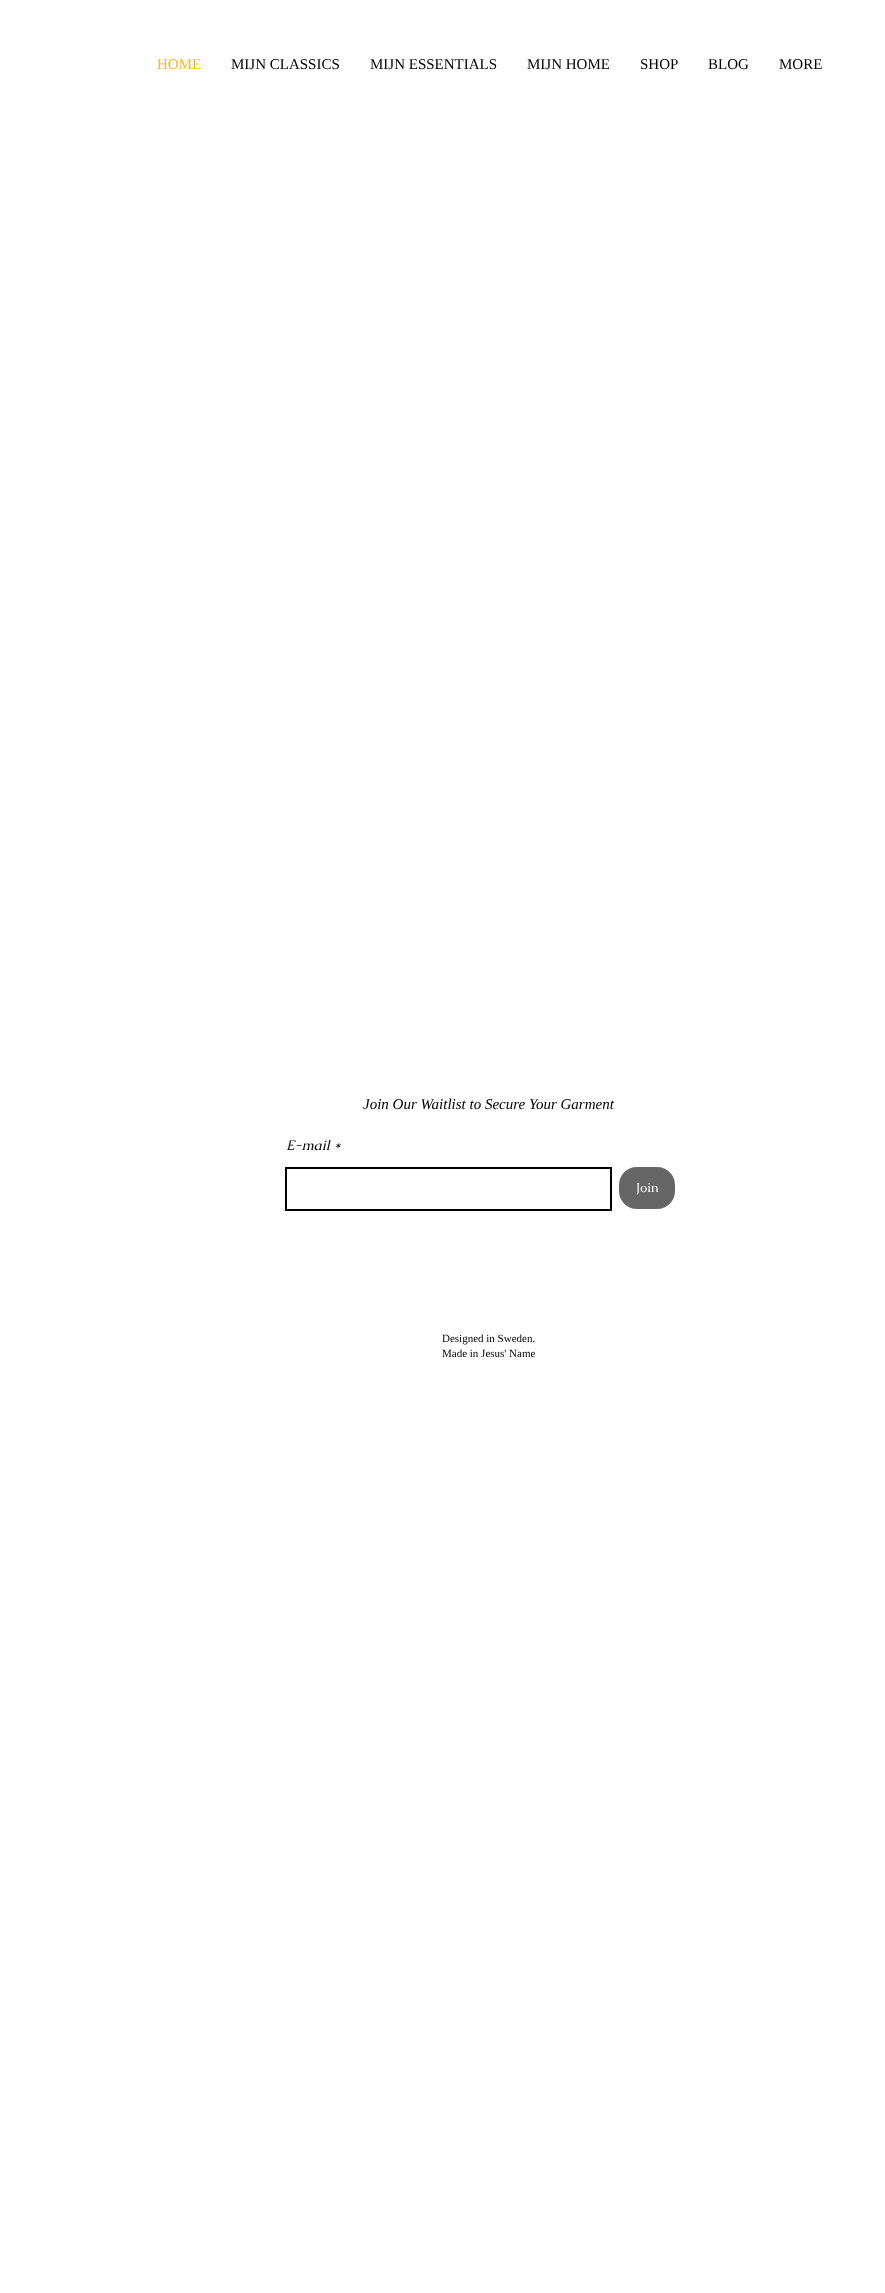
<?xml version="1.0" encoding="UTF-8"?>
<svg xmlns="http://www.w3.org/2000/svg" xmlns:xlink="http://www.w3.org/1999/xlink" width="885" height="2293">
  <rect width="100%" height="100%" fill="#ffffff" />
  <rect x="286" y="1168" width="325" height="42" fill="none" stroke="#000000" stroke-width="2" />
  <rect x="618" y="1166" width="58" height="44" rx="19" fill="#666666" stroke="#ffffff" stroke-width="2" />
  <text x="157" y="69" style="font-family: Liberation Serif; font-size: 15px; fill: #fbb917">HOME</text>
  <text x="231" y="69" style="font-family: Liberation Serif; font-size: 15px; fill: #000000">MIJN CLASSICS</text>
  <text x="370" y="69" style="font-family: Liberation Serif; font-size: 15px; fill: #000000">MIJN ESSENTIALS</text>
  <text x="527" y="69" style="font-family: Liberation Serif; font-size: 15px; fill: #000000">MIJN HOME</text>
  <text x="640" y="69" style="font-family: Liberation Serif; font-size: 15px; fill: #000000">SHOP</text>
  <text x="708" y="69" style="font-family: Liberation Serif; font-size: 15px; fill: #000000">BLOG</text>
  <text x="779" y="69" style="font-family: Liberation Serif; font-size: 15px; fill: #000000">MORE</text>
  <text x="363" y="1109" style="font-family: Liberation Serif; font-size: 15px; font-style: italic; fill: #000000">Join Our Waitlist to Secure Your Garment</text>
  <text x="286" y="1150" style="font-family: Caudex; font-size: 14px; font-style: italic; fill: #000000">E-mail *</text>
  <text x="636" y="1192" style="font-family: Caudex; font-size: 13px; fill: #ffffff">Join</text>
  <text x="442" y="1342" style="font-family: Liberation Serif; font-size: 11px; fill: #000000">Designed in Sweden.</text>
  <text x="442" y="1357" style="font-family: Liberation Serif; font-size: 11px; fill: #000000">Made in Jesus' Name</text>
</svg>
